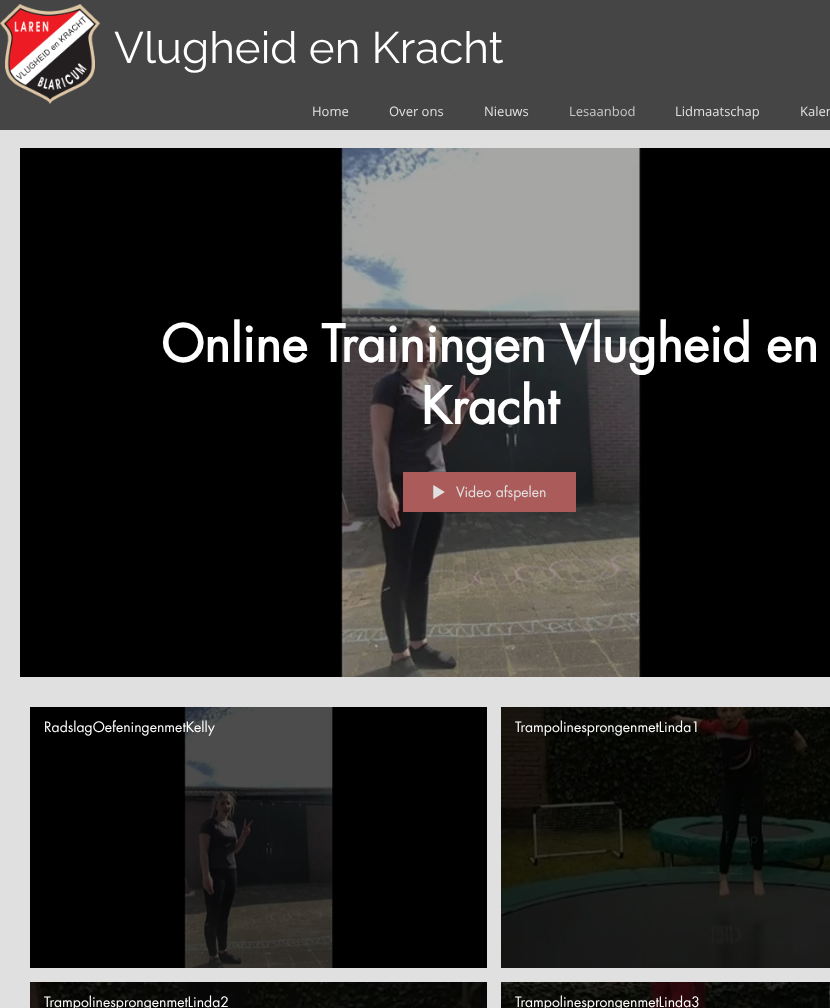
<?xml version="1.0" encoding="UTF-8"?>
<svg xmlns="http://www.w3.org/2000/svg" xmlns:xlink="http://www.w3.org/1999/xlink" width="830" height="1008">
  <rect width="100%" height="100%" fill="#e0e0e0" />
  <rect width="830" height="130" fill="#454545" />
  <image x="0" y="4" width="100" height="100" xlink:href="image1.png" />
  <rect x="20" y="148" width="810" height="529" fill="#000000" />
  <image x="340" y="148" width="304" height="529" xlink:href="image2.png" />
  <image x="345" y="524" width="288" height="147" xlink:href="image3.png" />
  <rect x="403" y="472" width="173" height="40" fill="#ac5b5b" />
  <image x="433" y="485" width="12" height="14" xlink:href="image4.png" />
  <rect x="30" y="707" width="457" height="261" fill="#000000" />
  <image x="182" y="707" width="152" height="261" xlink:href="image5.png" />
  <image x="184" y="707" width="149" height="261" xlink:href="image6.png" />
  <image x="501" y="918" width="329" height="50" xlink:href="image7.png" />
  <image x="501" y="707" width="329" height="211" xlink:href="image8.png" />
  <image x="30" y="982" width="457" height="26" xlink:href="image9.png" />
  <image x="50" y="983" width="425" height="25" xlink:href="image10.png" />
  <image x="829" y="982" width="1" height="26" xlink:href="image11.png" />
  <image x="501" y="982" width="328" height="26" xlink:href="image12.png" />
  <text x="114" y="63" style="font-family: Raleway; font-size: 44px; fill: #ffffff">Vlugheid en Kracht</text>
  <text x="312" y="116" style="font-family: Open Sans; font-size: 13px; fill: #e0e0e0">Home</text>
  <text x="389" y="116" style="font-family: Open Sans; font-size: 13px; fill: #e0e0e0">Over ons</text>
  <text x="484" y="116" style="font-family: Open Sans; font-size: 13px; fill: #e0e0e0">Nieuws</text>
  <text x="569" y="116" style="font-family: Open Sans; font-size: 13px; fill: #c8c8c8">Lesaanbod</text>
  <text x="675" y="116" style="font-family: Open Sans; font-size: 13px; fill: #e0e0e0">Lidmaatschap</text>
  <text x="800" y="116" style="font-family: Open Sans; font-size: 13px; fill: #e0e0e0">Kalen</text>
  <text x="161" y="362" style="font-family: futura; font-size: 50px; font-weight: bold; fill: #ffffff">Online Trainingen Vlugheid en</text>
  <text x="421" y="424" style="font-family: futura; font-size: 50px; font-weight: bold; fill: #ffffff">Kracht</text>
  <text x="456" y="497" style="font-family: futura; font-size: 14px; fill: #e0e0e0">Video afspelen</text>
  <text x="44" y="732" style="font-family: futura; font-size: 14px; fill: #ffffff">RadslagOefeningenmetKelly</text>
  <text x="515" y="732" style="font-family: futura; font-size: 14px; fill: #ffffff">TrampolinesprongenmetLinda1</text>
  <text x="725" y="843" style="font-family: futura; font-size: 14px; fill: #121b18">f</text>
  <text x="750" y="843" style="font-family: futura; font-size: 14px; fill: #121b18">p</text>
  <text x="44" y="1007" style="font-family: futura; font-size: 14px; fill: #ffffff">TrampolinesprongenmetLinda2</text>
  <text x="515" y="1007" style="font-family: futura; font-size: 14px; fill: #ffffff">TrampolinesprongenmetLinda3</text>
</svg>
